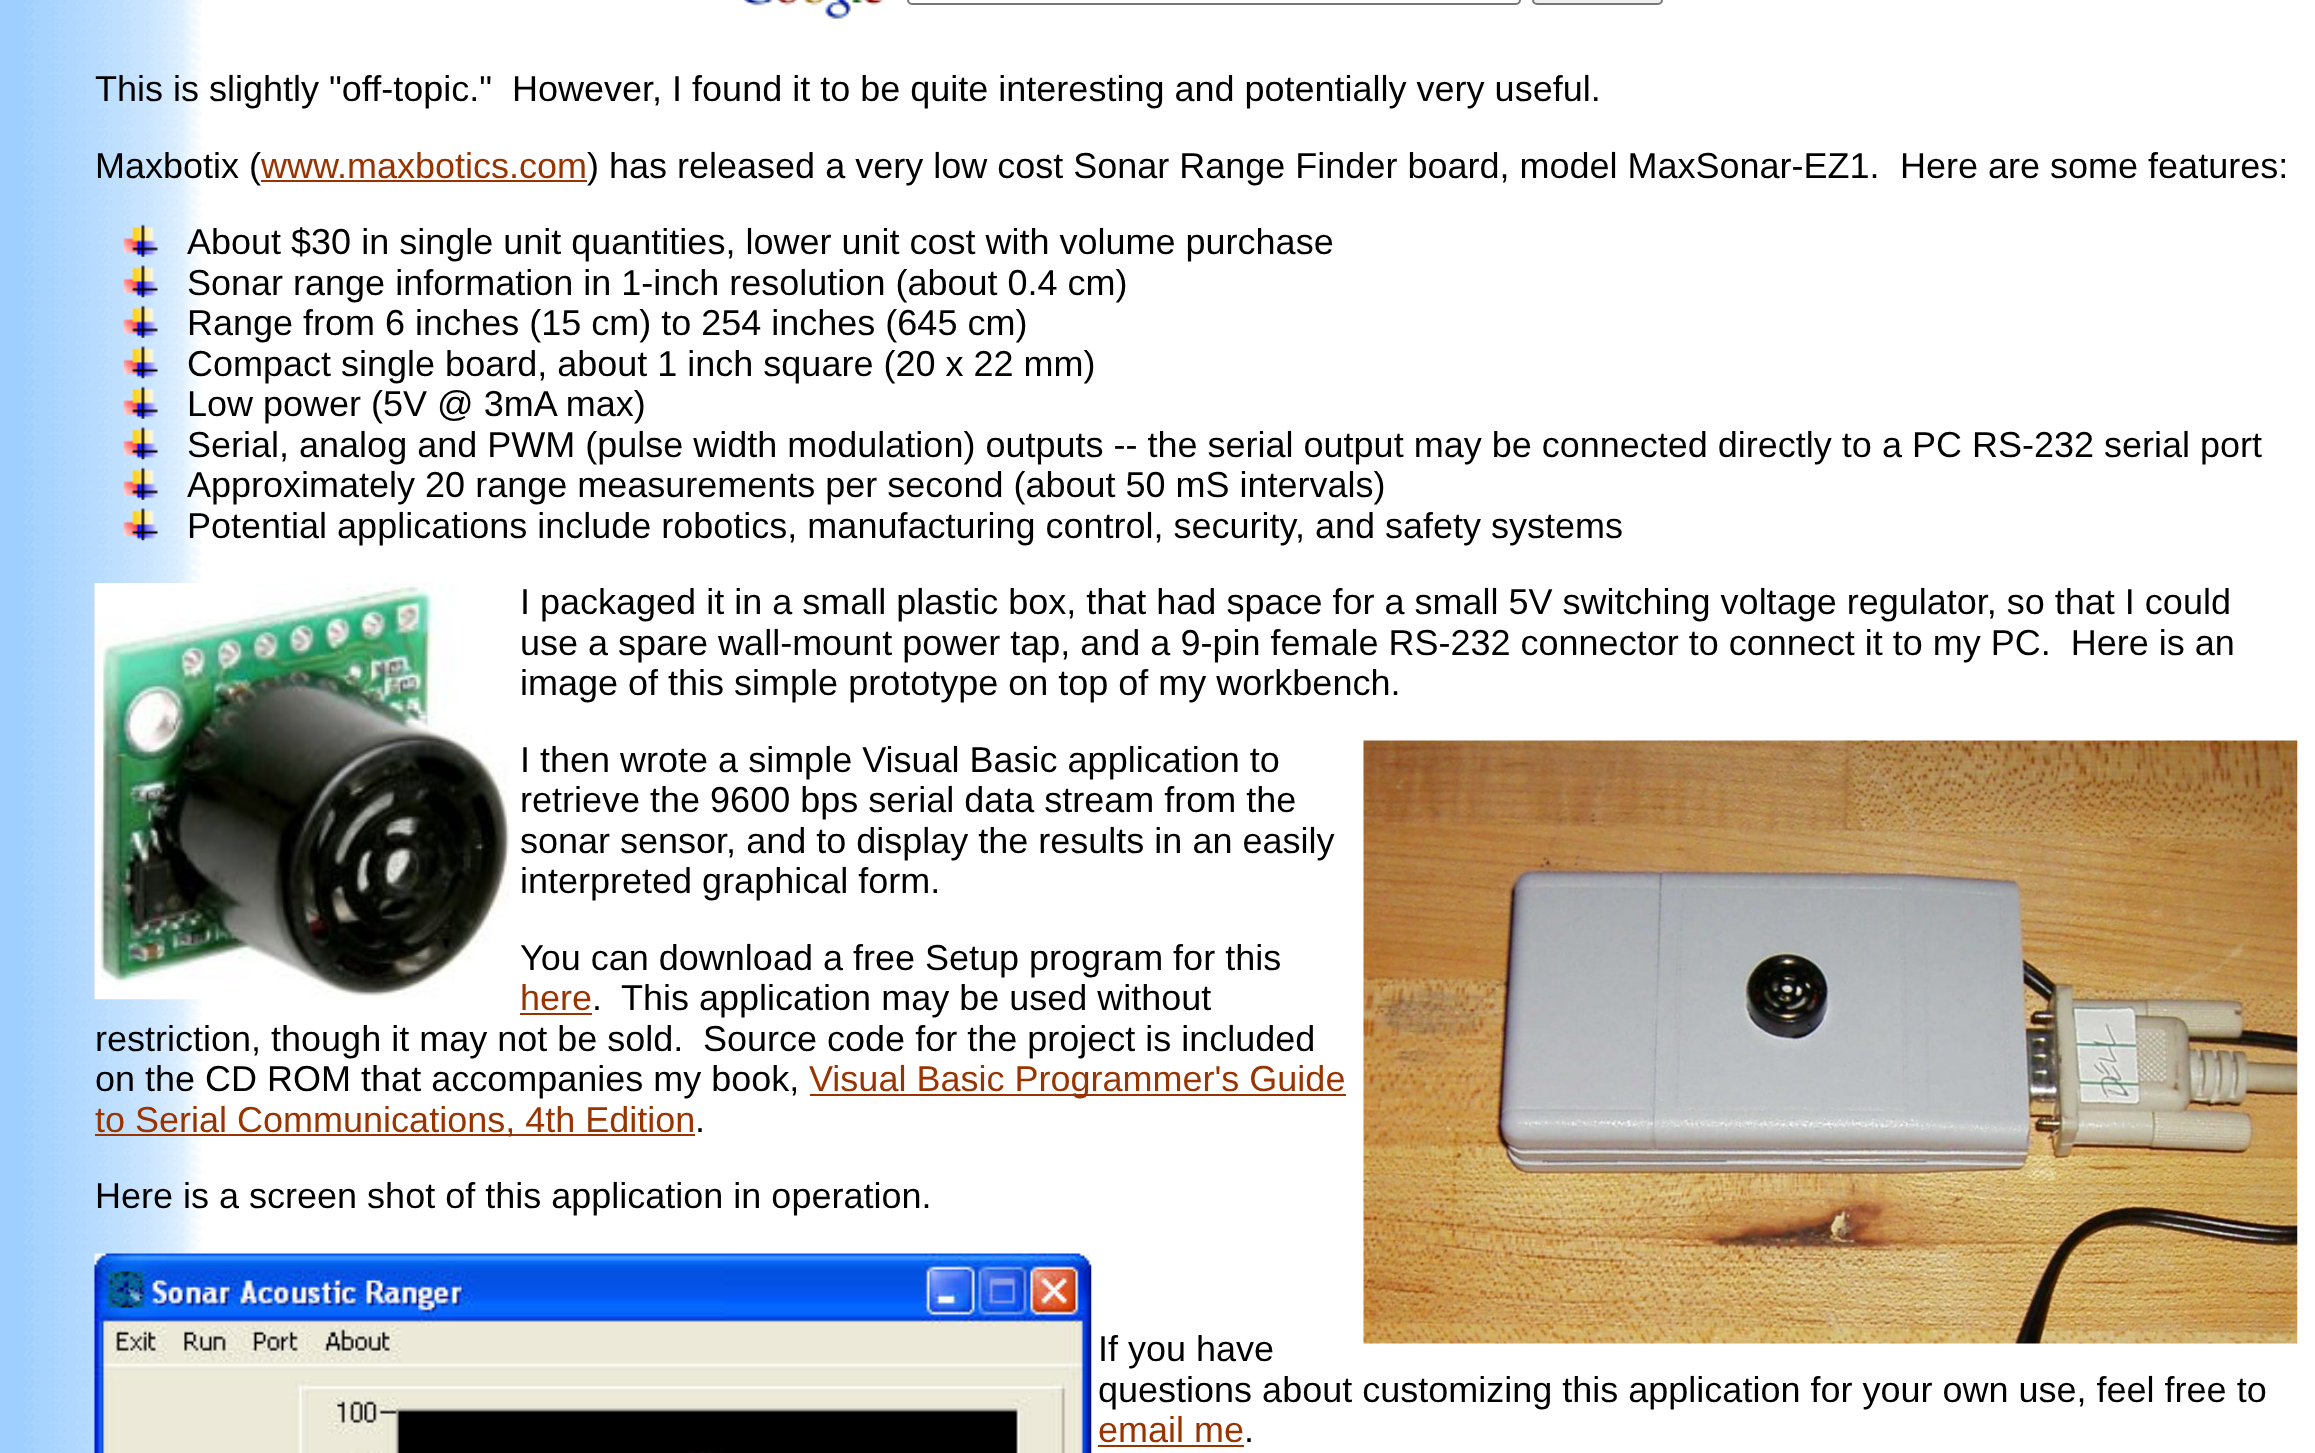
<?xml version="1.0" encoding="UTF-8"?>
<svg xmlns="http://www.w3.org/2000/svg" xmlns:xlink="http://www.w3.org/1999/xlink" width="2315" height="1453">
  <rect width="100%" height="100%" fill="#ffffff" />
  <image x="0" y="0" width="202" height="1453" xlink:href="image1.png" />
  <image x="742" y="0" width="141" height="19" xlink:href="image2.png" />
  <rect x="908" y="-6" width="612" height="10" rx="4" fill="none" stroke="#767676" stroke-width="2" />
  <rect x="1533" y="-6" width="129" height="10" rx="4" fill="#efefef" stroke="#767676" stroke-width="2" />
  <rect x="261" y="180" width="326" height="2" fill="#993300" />
  <image x="123" y="224" width="35" height="33" xlink:href="image3.png" />
  <image x="123" y="265" width="35" height="33" xlink:href="image4.png" />
  <image x="123" y="305" width="35" height="33" xlink:href="image5.png" />
  <image x="123" y="346" width="35" height="33" xlink:href="image6.png" />
  <image x="123" y="386" width="35" height="33" xlink:href="image7.png" />
  <image x="123" y="427" width="35" height="33" xlink:href="image8.png" />
  <image x="123" y="467" width="35" height="33" xlink:href="image9.png" />
  <image x="123" y="508" width="35" height="33" xlink:href="image10.png" />
  <image x="94" y="583" width="416" height="417" xlink:href="image11.png" />
  <image x="1363" y="740" width="935" height="604" xlink:href="image12.png" />
  <rect x="520" y="1013" width="72" height="2" fill="#993300" />
  <rect x="810" y="1094" width="536" height="2" fill="#993300" />
  <rect x="95" y="1134" width="600" height="2" fill="#993300" />
  <image x="94" y="1253" width="998" height="200" xlink:href="image13.png" />
  <rect x="1098" y="1445" width="146" height="2" fill="#993300" />
  <text x="95" y="101" style="font-family: Liberation Sans; font-size: 36px; fill: #000000" xml:space="preserve">This is slightly "off-topic."  However, I found it to be quite interesting and potentially very useful.</text>
  <text x="95" y="178" style="font-family: Liberation Sans; font-size: 36px; fill: #000000">Maxbotix (</text>
  <text x="261" y="178" style="font-family: Liberation Sans; font-size: 36px; fill: #993300">www.maxbotics.com</text>
  <text x="587" y="178" style="font-family: Liberation Sans; font-size: 36px; fill: #000000">) has released a very low cost Sonar Range Finder board, model MaxSonar-EZ1.</text>
  <text x="1900" y="178" style="font-family: Liberation Sans; font-size: 36px; fill: #000000">Here are some features:</text>
  <text x="187" y="254" style="font-family: Liberation Sans; font-size: 36px; fill: #000000">About $30 in single unit quantities, lower unit cost with volume purchase</text>
  <text x="187" y="295" style="font-family: Liberation Sans; font-size: 36px; fill: #000000">Sonar range information in 1-inch resolution (about 0.4 cm)</text>
  <text x="187" y="335" style="font-family: Liberation Sans; font-size: 36px; fill: #000000">Range from 6 inches (15 cm) to 254 inches (645 cm)</text>
  <text x="187" y="376" style="font-family: Liberation Sans; font-size: 36px; fill: #000000">Compact single board, about 1 inch square (20 x 22 mm)</text>
  <text x="187" y="416" style="font-family: Liberation Sans; font-size: 36px; fill: #000000">Low power (5V @ 3mA max)</text>
  <text x="187" y="457" style="font-family: Liberation Sans; font-size: 36px; fill: #000000">Serial, analog and PWM (pulse width modulation) outputs -- the serial output may be connected directly to a PC RS-232 serial port</text>
  <text x="187" y="497" style="font-family: Liberation Sans; font-size: 36px; fill: #000000">Approximately 20 range measurements per second (about 50 mS intervals)</text>
  <text x="187" y="538" style="font-family: Liberation Sans; font-size: 36px; fill: #000000">Potential applications include robotics, manufacturing control, security, and safety systems</text>
  <text x="520" y="614" style="font-family: Liberation Sans; font-size: 36px; fill: #000000">I packaged it in a small plastic box, that had space for a small 5V switching voltage regulator, so that I could</text>
  <text x="520" y="655" style="font-family: Liberation Sans; font-size: 36px; fill: #000000" xml:space="preserve">use a spare wall-mount power tap, and a 9-pin female RS-232 connector to connect it to my PC.  Here is an</text>
  <text x="520" y="695" style="font-family: Liberation Sans; font-size: 36px; fill: #000000">image of this simple prototype on top of my workbench.</text>
  <text x="520" y="772" style="font-family: Liberation Sans; font-size: 36px; fill: #000000">I then wrote a simple Visual Basic application to</text>
  <text x="520" y="812" style="font-family: Liberation Sans; font-size: 36px; fill: #000000">retrieve the 9600 bps serial data stream from the</text>
  <text x="520" y="853" style="font-family: Liberation Sans; font-size: 36px; fill: #000000">sonar sensor, and to display the results in an easily</text>
  <text x="520" y="893" style="font-family: Liberation Sans; font-size: 36px; fill: #000000">interpreted graphical form.</text>
  <text x="520" y="970" style="font-family: Liberation Sans; font-size: 36px; fill: #000000">You can download a free Setup program for this</text>
  <text x="520" y="1010" style="font-family: Liberation Sans; font-size: 36px; fill: #993300">here</text>
  <text x="592" y="1010" style="font-family: Liberation Sans; font-size: 36px; fill: #000000">.</text>
  <text x="621" y="1010" style="font-family: Liberation Sans; font-size: 36px; fill: #000000">This application may be used without</text>
  <text x="95" y="1051" style="font-family: Liberation Sans; font-size: 36px; fill: #000000">restriction, though it may not be sold.</text>
  <text x="703" y="1051" style="font-family: Liberation Sans; font-size: 36px; fill: #000000">Source code for the project is included</text>
  <text x="95" y="1091" style="font-family: Liberation Sans; font-size: 36px; fill: #000000">on the CD ROM that accompanies my book,</text>
  <text x="809" y="1091" style="font-family: Liberation Sans; font-size: 36px; fill: #993300">Visual Basic Programmer's Guide</text>
  <text x="95" y="1132" style="font-family: Liberation Sans; font-size: 36px; fill: #993300">to Serial Communications, 4th Edition</text>
  <text x="695" y="1132" style="font-family: Liberation Sans; font-size: 36px; fill: #000000">.</text>
  <text x="95" y="1208" style="font-family: Liberation Sans; font-size: 36px; fill: #000000">Here is a screen shot of this application in operation.</text>
  <text x="1098" y="1361" style="font-family: Liberation Sans; font-size: 36px; fill: #000000">If you have</text>
  <text x="1098" y="1402" style="font-family: Liberation Sans; font-size: 36px; fill: #000000">questions about customizing this application for your own use, feel free to</text>
  <text x="1098" y="1442" style="font-family: Liberation Sans; font-size: 36px; fill: #993300">email me</text>
  <text x="1244" y="1442" style="font-family: Liberation Sans; font-size: 36px; fill: #000000">.</text>
</svg>
